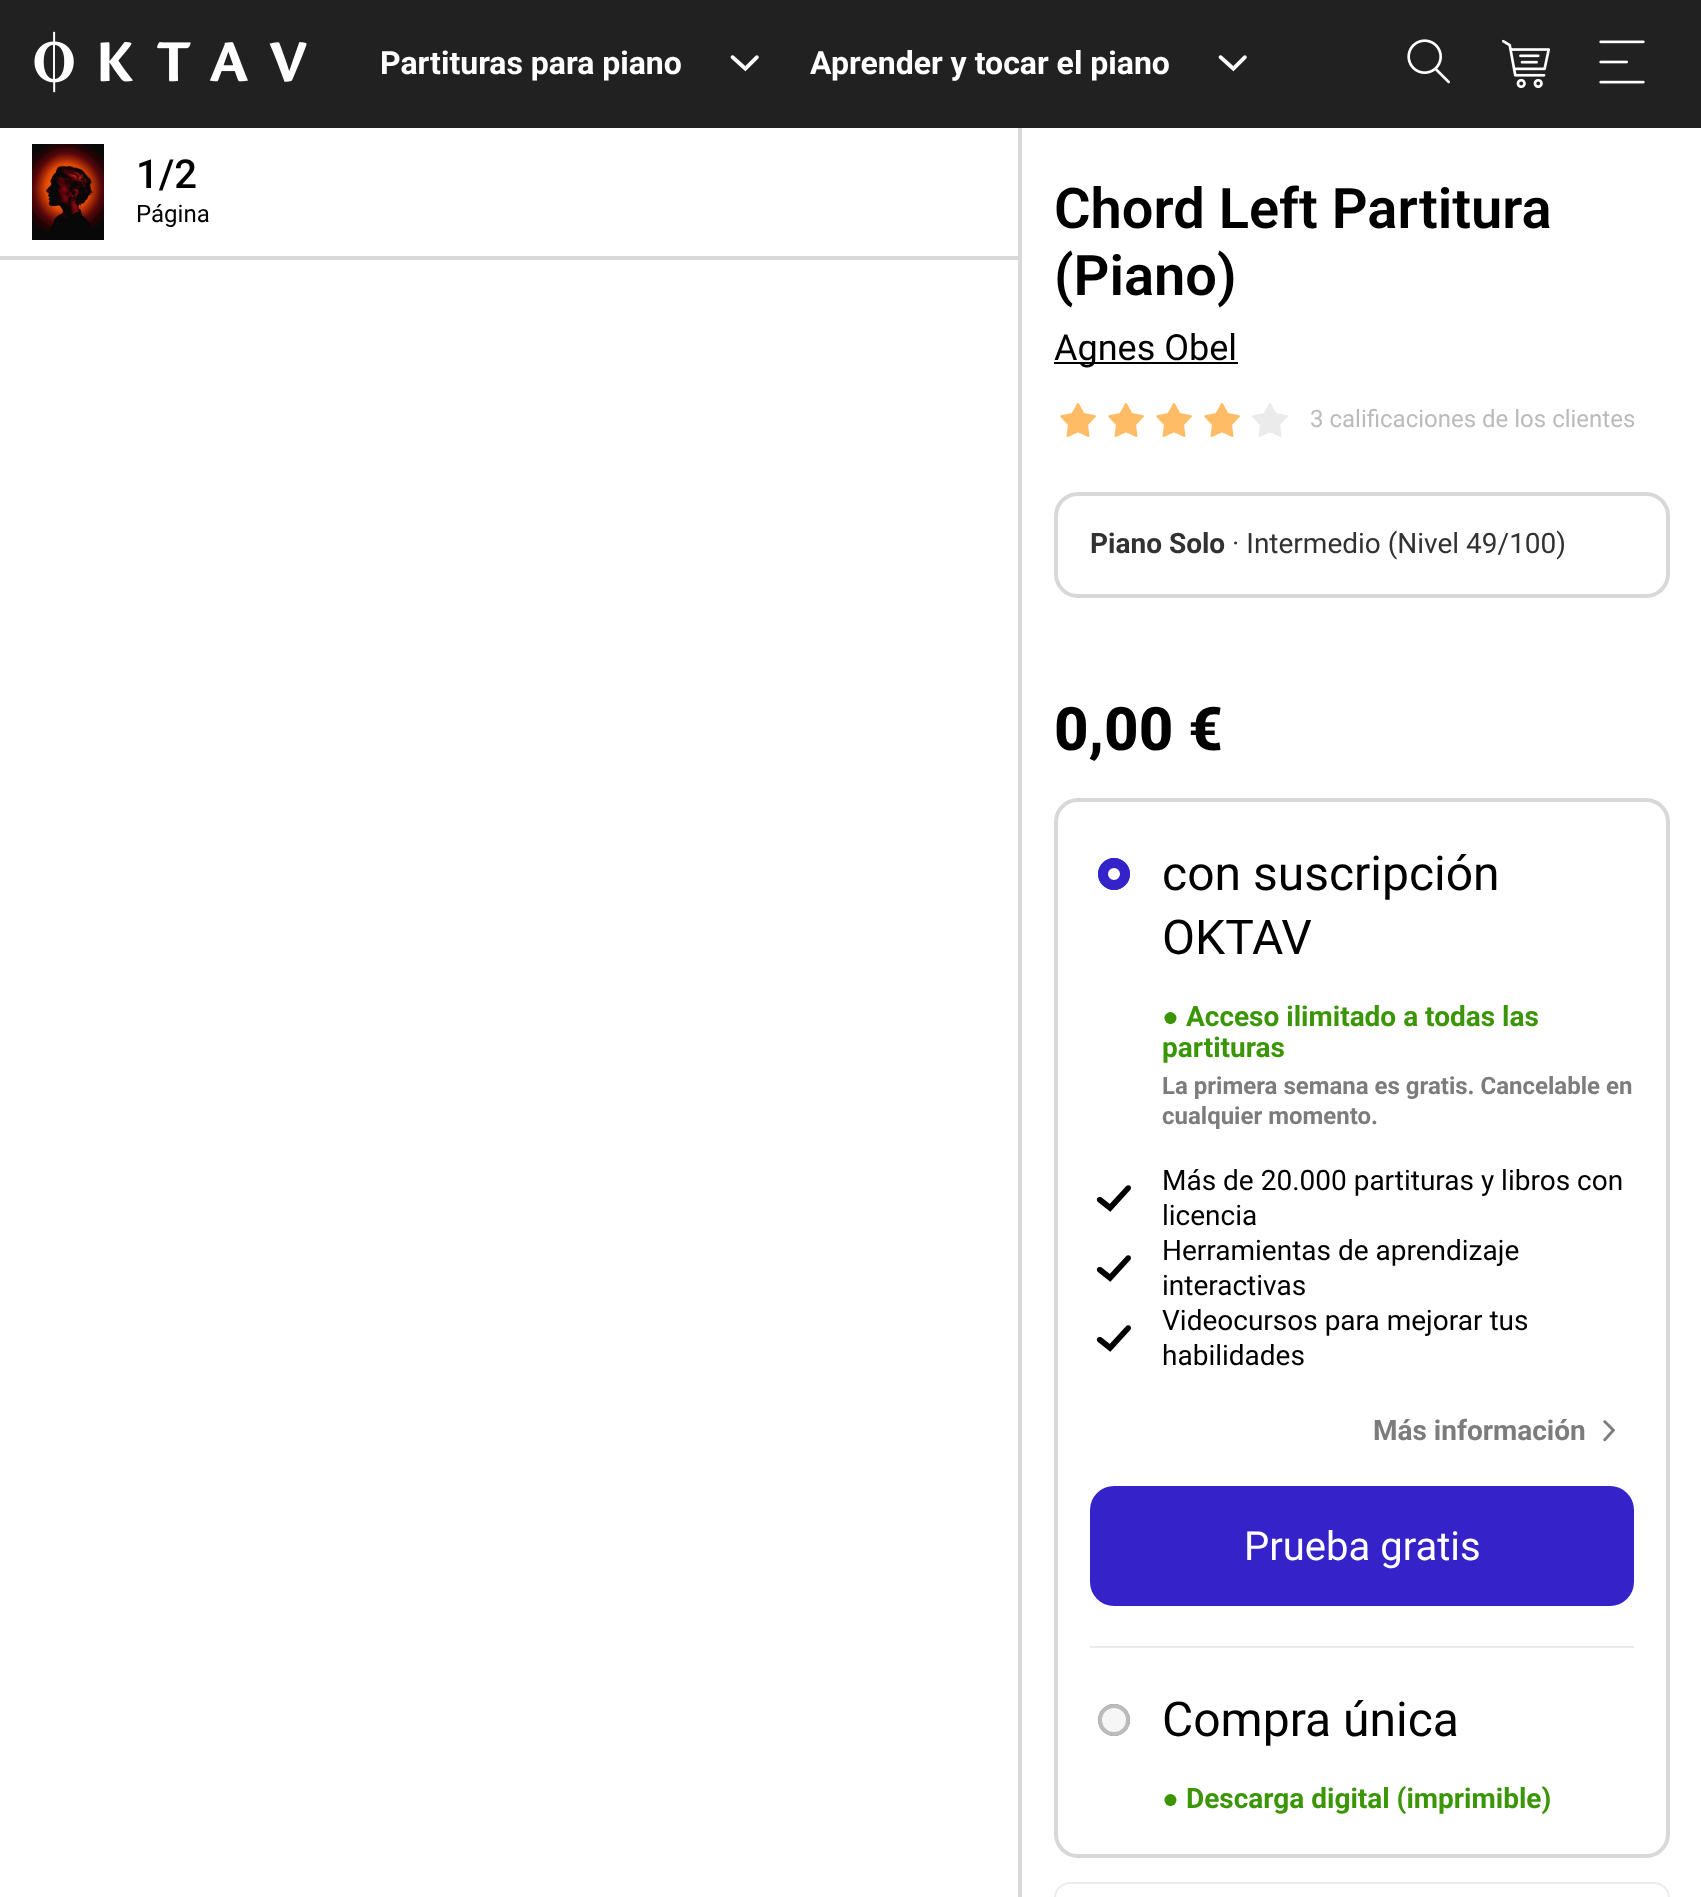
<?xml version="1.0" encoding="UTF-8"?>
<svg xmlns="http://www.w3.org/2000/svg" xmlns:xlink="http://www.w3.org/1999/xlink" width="1701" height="1897">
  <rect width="100%" height="100%" fill="#ffffff" />
  <rect width="1701" height="128" fill="#212121" />
  <image x="34" y="31" width="273" height="62" xlink:href="image1.png" />
  <image x="730" y="55" width="29" height="17" xlink:href="image2.png" />
  <image x="1218" y="55" width="29" height="17" xlink:href="image2.png" />
  <image x="1407" y="39" width="43" height="45" xlink:href="image3.png" />
  <image x="1501" y="39" width="49" height="50" xlink:href="image4.png" />
  <image x="1599" y="40" width="46" height="44" xlink:href="image5.png" />
  <rect x="1018" y="128" width="4" height="1769" fill="#d8d8d8" />
  <rect y="256" width="1018" height="4" fill="#d8d8d8" />
  <image x="32" y="144" width="72" height="96" xlink:href="image6.png" />
  <rect x="1054" y="362" width="184" height="2" fill="#000000" />
  <image x="1060" y="403" width="36" height="35" xlink:href="image7.png" />
  <image x="1108" y="403" width="36" height="35" xlink:href="image7.png" />
  <image x="1156" y="403" width="36" height="35" xlink:href="image7.png" />
  <image x="1204" y="403" width="36" height="35" xlink:href="image7.png" />
  <image x="1252" y="403" width="36" height="34" xlink:href="image8.png" />
  <rect x="1056" y="494" width="612" height="102" rx="22" fill="none" stroke="#d8d8d8" stroke-width="4" />
  <rect x="1056" y="800" width="612" height="1056" rx="22" fill="none" stroke="#d8d8d8" stroke-width="4" />
  <circle cx="1114" cy="874" r="15" fill="none" stroke="#0075ff" stroke-width="2" />
  <circle cx="1114" cy="874" r="11" fill="#ffffff" stroke="#3523c9" stroke-width="10" />
  <image x="1096" y="1185" width="35" height="27" xlink:href="image9.png" />
  <image x="1096" y="1255" width="35" height="27" xlink:href="image9.png" />
  <image x="1096" y="1325" width="35" height="27" xlink:href="image9.png" />
  <image x="1603" y="1420" width="13" height="22" xlink:href="image10.png" />
  <rect x="1090" y="1486" width="544" height="120" rx="24" fill="#3523c9" />
  <rect x="1090" y="1646" width="544" height="2" fill="#ebebeb" />
  <circle cx="1114" cy="1720" r="15" fill="none" stroke="#767676" stroke-width="2" />
  <circle cx="1114" cy="1720" r="14" fill="#f6f6f6" stroke="#bbbbbb" stroke-width="4" />
  <rect x="1055" y="1883" width="614" height="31" rx="15" fill="none" stroke="#ebebeb" stroke-width="2" />
  <text x="380" y="74" style="font-family: Roboto; font-size: 32px; font-weight: bold; fill: #ffffff">Partituras para piano</text>
  <text x="810" y="74" style="font-family: Roboto; font-size: 32px; font-weight: bold; fill: #ffffff">Aprender y tocar el piano</text>
  <text x="136" y="188" style="font-family: Roboto; font-size: 40px; font-weight: 500; fill: #000000">1/2</text>
  <text x="136" y="222" style="font-family: Roboto; font-size: 24px; fill: #000000">Página</text>
  <text x="1054" y="228" style="font-family: Roboto; font-size: 56px; font-weight: 600; fill: #000000">Chord Left Partitura</text>
  <text x="1054" y="295" style="font-family: Roboto; font-size: 56px; font-weight: 600; fill: #000000">(Piano)</text>
  <text x="1054" y="360" style="font-family: Roboto; font-size: 36px; fill: #000000">Agnes Obel</text>
  <text x="1310" y="427" style="font-family: Roboto; font-size: 24px; fill: #bbbbbb">3 calificaciones de los clientes</text>
  <text x="1090" y="553" style="font-family: Roboto; font-size: 28px; font-weight: bold; fill: #323232">Piano Solo</text>
  <text x="1232" y="553" style="font-family: Roboto; font-size: 28px; fill: #323232">· Intermedio (Nivel 49/100)</text>
  <text x="1054" y="750" style="font-family: Roboto; font-size: 60px; font-weight: 800; fill: #000000">0,00 €</text>
  <text x="1162" y="890" style="font-family: Roboto; font-size: 48px; fill: #000000">con suscripción</text>
  <text x="1162" y="954" style="font-family: Roboto; font-size: 48px; fill: #000000">OKTAV</text>
  <text x="1162" y="1026" style="font-family: Liberation Sans; font-size: 28px; font-weight: bold; fill: #3b9607">●</text>
  <text x="1186" y="1026" style="font-family: Roboto; font-size: 28px; font-weight: bold; fill: #3b9607">Acceso ilimitado a todas las</text>
  <text x="1162" y="1057" style="font-family: Roboto; font-size: 28px; font-weight: bold; fill: #3b9607">partituras</text>
  <text x="1162" y="1094" style="font-family: Roboto; font-size: 24px; font-weight: bold; fill: #7c7c7c">La primera semana es gratis. Cancelable en</text>
  <text x="1162" y="1124" style="font-family: Roboto; font-size: 24px; font-weight: bold; fill: #7c7c7c">cualquier momento.</text>
  <text x="1162" y="1190" style="font-family: Roboto; font-size: 28px; fill: #000000">Más de 20.000 partituras y libros con</text>
  <text x="1162" y="1225" style="font-family: Roboto; font-size: 28px; fill: #000000">licencia</text>
  <text x="1162" y="1260" style="font-family: Roboto; font-size: 28px; fill: #000000">Herramientas de aprendizaje</text>
  <text x="1162" y="1295" style="font-family: Roboto; font-size: 28px; fill: #000000">interactivas</text>
  <text x="1162" y="1330" style="font-family: Roboto; font-size: 28px; fill: #000000">Videocursos para mejorar tus</text>
  <text x="1162" y="1365" style="font-family: Roboto; font-size: 28px; fill: #000000">habilidades</text>
  <text x="1373" y="1440" style="font-family: Roboto; font-size: 28px; font-weight: bold; fill: #7c7c7c">Más información</text>
  <text x="1244" y="1560" style="font-family: Roboto; font-size: 40px; fill: #ffffff">Prueba gratis</text>
  <text x="1162" y="1736" style="font-family: Roboto; font-size: 48px; fill: #000000">Compra única</text>
  <text x="1162" y="1808" style="font-family: Liberation Sans; font-size: 28px; font-weight: bold; fill: #3b9607">●</text>
  <text x="1186" y="1808" style="font-family: Roboto; font-size: 28px; font-weight: bold; fill: #3b9607">Descarga digital (imprimible)</text>
</svg>
